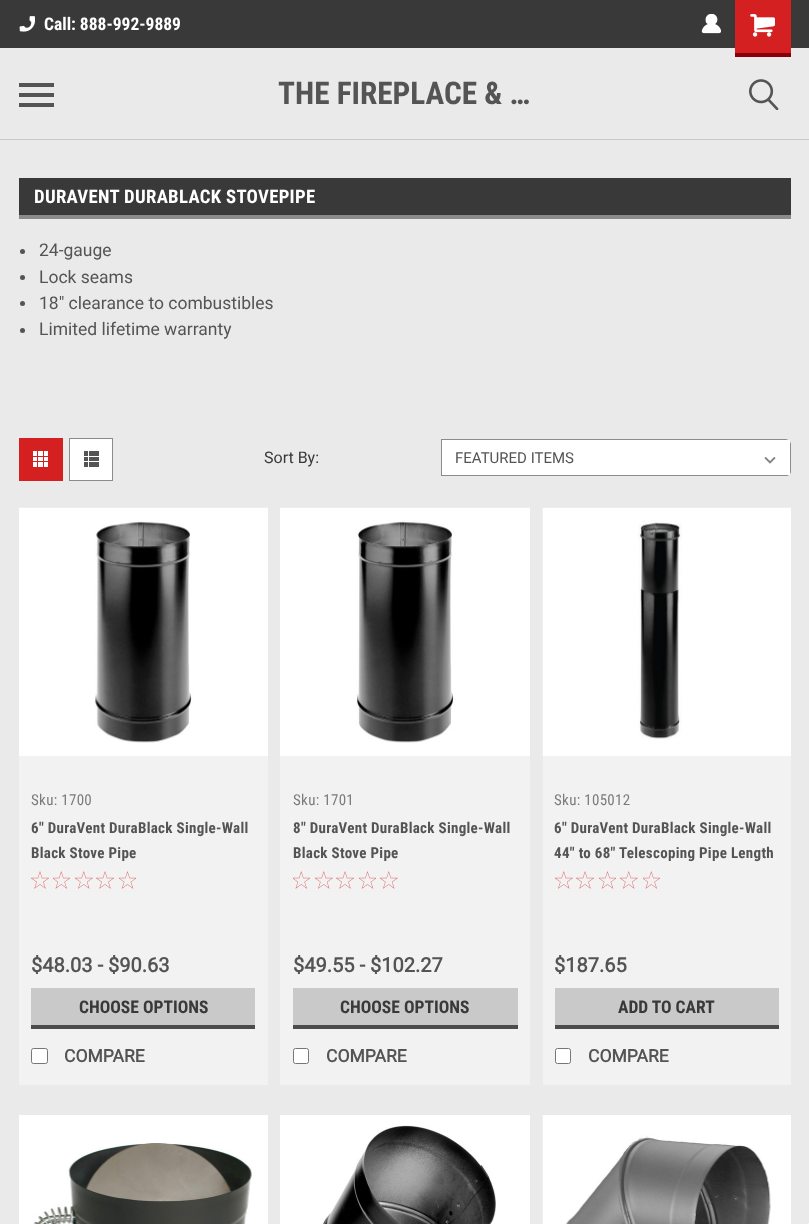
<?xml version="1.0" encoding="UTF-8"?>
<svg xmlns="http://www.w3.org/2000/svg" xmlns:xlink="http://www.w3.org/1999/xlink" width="809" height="1224">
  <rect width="100%" height="100%" fill="#eaeaea" />
  <rect y="139" width="809" height="1" fill="#cac9c9" />
  <rect width="809" height="48" fill="#393939" />
  <image x="19" y="16" width="16" height="16" xlink:href="image1.png" />
  <image x="701" y="14" width="20" height="20" xlink:href="image2.png" />
  <rect x="735" width="56" height="53" fill="#d42020" />
  <rect x="735" y="53" width="56" height="4" fill="#860109" />
  <image x="750" y="14" width="25" height="23" xlink:href="image3.png" />
  <rect x="19" y="93" width="35" height="4" fill="#545454" />
  <rect x="19" y="83" width="35" height="4" fill="#545454" />
  <rect x="19" y="103" width="35" height="4" fill="#545454" />
  <image x="749" y="79" width="30" height="31" xlink:href="image4.png" />
  <rect x="19" y="178" width="772" height="37" fill="#393939" />
  <rect x="19" y="215" width="772" height="4" fill="#8b8b8b" />
  <circle cx="22.5" cy="251.5" r="2.5" fill="#545454" />
  <circle cx="22.5" cy="277.5" r="2.5" fill="#545454" />
  <circle cx="22.5" cy="303.5" r="2.5" fill="#545454" />
  <circle cx="22.5" cy="330.5" r="2.5" fill="#545454" />
  <rect x="19" y="438" width="44" height="43" fill="#d42020" />
  <image x="33" y="451" width="15" height="16" xlink:href="image5.png" />
  <rect x="69.5" y="438.5" width="43" height="42" fill="#ffffff" stroke="#8b8b8b" />
  <image x="84" y="451" width="15" height="16" xlink:href="image6.png" />
  <path d="M 441 439 h 345 c 3 0 5 2 5 5 v 27 c 0 3 -2 5 -5 5 h -345 z" fill="#ffffff" />
  <image x="764" y="456" width="12" height="8" xlink:href="image7.png" />
  <path d="M 441 439 v 37 h 345 c 1 0 2 0 3 -1 h -347 v -35 h 347 l -3 -1 z m 350 5 l -1 -3 v 33 c 1 -1 1 -2 1 -3 z" fill="#8b8b8b" fill-rule="evenodd" />
  <rect x="19" y="756" width="249" height="329" fill="#f2f2f2" />
  <rect x="19" y="508" width="249" height="248" fill="#ffffff" />
  <image x="19" y="507" width="248" height="236" xlink:href="image8.png" />
  <image x="31" y="871" width="18" height="18" xlink:href="image9.png" />
  <image x="53" y="871" width="17" height="18" xlink:href="image10.png" />
  <image x="75" y="871" width="18" height="18" xlink:href="image11.png" />
  <image x="96" y="871" width="18" height="18" xlink:href="image9.png" />
  <image x="119" y="871" width="17" height="18" xlink:href="image12.png" />
  <rect x="31" y="988" width="224" height="37" fill="#cac9c9" />
  <rect x="31" y="1025" width="224" height="4" fill="#4c4c4c" />
  <rect x="31.5" y="1048.5" width="16" height="15" rx="2" fill="#ffffff" stroke="#767676" />
  <rect x="280" y="756" width="250" height="329" fill="#f2f2f2" />
  <rect x="280" y="743" width="250" height="13" fill="#ffffff" />
  <image x="280" y="507" width="250" height="236" xlink:href="image13.png" />
  <image x="293" y="871" width="17" height="18" xlink:href="image10.png" />
  <image x="315" y="871" width="18" height="18" xlink:href="image11.png" />
  <image x="336" y="871" width="18" height="18" xlink:href="image9.png" />
  <image x="359" y="871" width="17" height="18" xlink:href="image12.png" />
  <image x="380" y="871" width="18" height="18" xlink:href="image11.png" />
  <rect x="293" y="988" width="225" height="37" fill="#cac9c9" />
  <rect x="293" y="1025" width="225" height="4" fill="#4c4c4c" />
  <rect x="293.5" y="1048.5" width="15" height="15" rx="2" fill="#ffffff" stroke="#767676" />
  <rect x="543" y="756" width="248" height="329" fill="#f2f2f2" />
  <image x="542" y="507" width="249" height="249" xlink:href="image14.png" />
  <image x="555" y="871" width="18" height="18" xlink:href="image11.png" />
  <image x="576" y="871" width="18" height="18" xlink:href="image9.png" />
  <image x="599" y="871" width="17" height="18" xlink:href="image12.png" />
  <image x="620" y="871" width="18" height="18" xlink:href="image11.png" />
  <image x="643" y="871" width="17" height="18" xlink:href="image10.png" />
  <rect x="555" y="988" width="224" height="37" fill="#cac9c9" />
  <rect x="555" y="1025" width="224" height="4" fill="#4c4c4c" />
  <rect x="555.5" y="1048.5" width="15" height="15" rx="2" fill="#ffffff" stroke="#767676" />
  <rect x="19" y="1115" width="249" height="109" fill="#ffffff" />
  <image x="33" y="1143" width="219" height="81" xlink:href="image15.png" />
  <rect x="280" y="1115" width="250" height="109" fill="#ffffff" />
  <image x="323" y="1125" width="173" height="99" xlink:href="image16.png" />
  <rect x="771" y="1115" width="20" height="109" fill="#ffffff" />
  <image x="542" y="1115" width="229" height="109" xlink:href="image17.png" />
  <rect x="808" y="1223" width="1" height="1" fill="#f5f5f5" />
  <text x="44" y="30" style="font-family: Roboto Condensed; font-size: 17.5px; font-weight: bold; fill: #ffffff">Call: 888-992-9889</text>
  <text x="278" y="104" style="font-family: Roboto Condensed; font-size: 31.25px; font-weight: bold; fill: #545454">THE FIREPLACE &amp; …</text>
  <text x="34" y="203" style="font-family: Roboto Condensed; font-size: 18.75px; font-weight: bold; letter-spacing: 0.3px; fill: #ffffff">DURAVENT DURABLACK STOVEPIPE</text>
  <text x="39" y="256" style="font-family: Roboto; font-size: 17.5px; fill: #545454">24-gauge</text>
  <text x="39" y="283" style="font-family: Roboto; font-size: 17.5px; fill: #545454">Lock seams</text>
  <text x="39" y="309" style="font-family: Roboto; font-size: 17.5px; fill: #545454">18" clearance to combustibles</text>
  <text x="39" y="335" style="font-family: Roboto; font-size: 17.5px; fill: #545454">Limited lifetime warranty</text>
  <text x="264" y="463" style="font-family: Roboto; font-size: 16px; fill: #393939">Sort By:</text>
  <text x="455" y="463" style="font-family: Roboto; font-size: 15px; fill: #545454">FEATURED ITEMS</text>
  <text x="31" y="805" style="font-family: Roboto Condensed; font-size: 15px; letter-spacing: 0.3px; fill: #7b7b7b">Sku: 1700</text>
  <text x="31" y="833" style="font-family: Roboto Condensed; font-size: 15px; font-weight: bold; letter-spacing: 0.3px; fill: #545454">6" DuraVent DuraBlack Single-Wall</text>
  <text x="31" y="858" style="font-family: Roboto Condensed; font-size: 15px; font-weight: bold; letter-spacing: 0.3px; fill: #545454">Black Stove Pipe</text>
  <text x="31" y="972" style="font-family: Roboto; font-size: 20px; font-weight: bold; fill: #545454">$48.03 - $90.63</text>
  <text x="79" y="1013" style="font-family: Roboto Condensed; font-size: 17.5px; font-weight: bold; fill: #393939">CHOOSE OPTIONS</text>
  <text x="64" y="1062" style="font-family: Roboto; font-size: 17.5px; font-weight: bold; fill: #545454">COMPARE</text>
  <text x="293" y="805" style="font-family: Roboto Condensed; font-size: 15px; letter-spacing: 0.3px; fill: #7b7b7b">Sku: 1701</text>
  <text x="293" y="833" style="font-family: Roboto Condensed; font-size: 15px; font-weight: bold; letter-spacing: 0.3px; fill: #545454">8" DuraVent DuraBlack Single-Wall</text>
  <text x="293" y="858" style="font-family: Roboto Condensed; font-size: 15px; font-weight: bold; letter-spacing: 0.3px; fill: #545454">Black Stove Pipe</text>
  <text x="293" y="972" style="font-family: Roboto; font-size: 20px; font-weight: bold; fill: #545454">$49.55 - $102.27</text>
  <text x="340" y="1013" style="font-family: Roboto Condensed; font-size: 17.5px; font-weight: bold; fill: #393939">CHOOSE OPTIONS</text>
  <text x="326" y="1062" style="font-family: Roboto; font-size: 17.5px; font-weight: bold; fill: #545454">COMPARE</text>
  <text x="554" y="805" style="font-family: Roboto Condensed; font-size: 15px; letter-spacing: 0.3px; fill: #7b7b7b">Sku: 105012</text>
  <text x="554" y="833" style="font-family: Roboto Condensed; font-size: 15px; font-weight: bold; letter-spacing: 0.3px; fill: #545454">6" DuraVent DuraBlack Single-Wall</text>
  <text x="554" y="858" style="font-family: Roboto Condensed; font-size: 15px; font-weight: bold; letter-spacing: 0.3px; fill: #545454">44" to 68" Telescoping Pipe Length</text>
  <text x="554" y="972" style="font-family: Roboto; font-size: 20px; font-weight: bold; fill: #545454">$187.65</text>
  <text x="618" y="1013" style="font-family: Roboto Condensed; font-size: 17.5px; font-weight: bold; fill: #393939">ADD TO CART</text>
  <text x="588" y="1062" style="font-family: Roboto; font-size: 17.5px; font-weight: bold; fill: #545454">COMPARE</text>
</svg>
